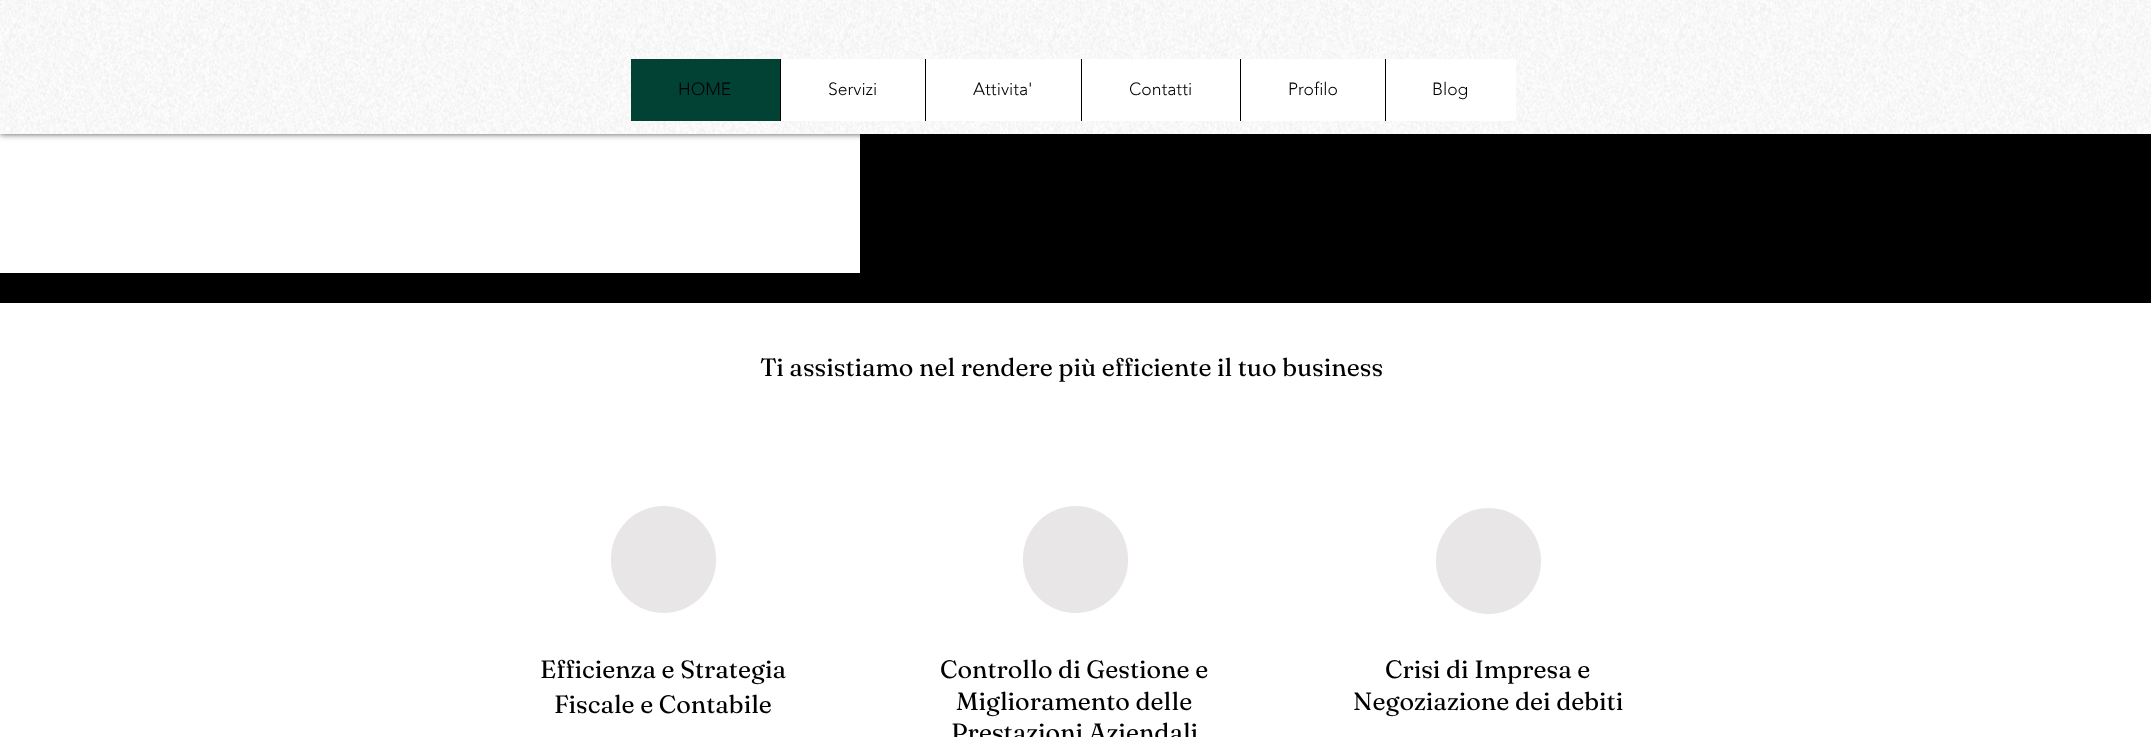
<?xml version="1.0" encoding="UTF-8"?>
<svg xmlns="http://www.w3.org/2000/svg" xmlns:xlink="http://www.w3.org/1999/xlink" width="2151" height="737">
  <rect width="100%" height="100%" fill="#000000" />
  <rect y="134" width="860" height="139" fill="#ffffff" />
  <rect width="2151" height="134" fill="#000000" fill-opacity="0.7" filter="blur(3px)" />
  <rect width="2151" height="134" fill="#ffffff" />
  <image x="0" y="0" width="2151" height="134" xlink:href="image1.png" />
  <rect x="781" y="59" width="735" height="62" fill="#ffffff" />
  <rect x="631" y="59" width="149" height="62" fill="#014235" />
  <rect x="780" y="59" width="1" height="62" fill="#000000" />
  <rect x="925" y="59" width="1" height="62" fill="#000000" />
  <rect x="1081" y="59" width="1" height="62" fill="#000000" />
  <rect x="1240" y="59" width="1" height="62" fill="#000000" />
  <rect x="1385" y="59" width="1" height="62" fill="#000000" />
  <rect y="303" width="2151" height="434" fill="#ffffff" />
  <rect x="611" y="506" width="105" height="107" rx="52.5" fill="#e8e6e6" />
  <rect x="1023" y="506" width="105" height="107" rx="52.5" fill="#e8e6e6" />
  <rect x="1436" y="508" width="105" height="106" rx="52.5" fill="#e8e6e6" />
  <text x="678" y="95" style="font-family: 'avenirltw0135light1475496'; font-size: 17.5px; font-weight: 300; fill: #000000">HOME</text>
  <text x="828" y="95" style="font-family: 'avenirltw0135light1475496'; font-size: 17.5px; font-weight: 300; fill: #000000">Servizi</text>
  <text x="973" y="95" style="font-family: 'avenirltw0135light1475496'; font-size: 17.5px; font-weight: 300; fill: #000000">Attivita'</text>
  <text x="1129" y="95" style="font-family: 'avenirltw0135light1475496'; font-size: 17.5px; font-weight: 300; fill: #000000">Contatti</text>
  <text x="1288" y="95" style="font-family: 'avenirltw0135light1475496'; font-size: 17.5px; font-weight: 300; fill: #000000">Profilo</text>
  <text x="1432" y="95" style="font-family: 'avenirltw0135light1475496'; font-size: 17.5px; font-weight: 300; fill: #000000">Blog</text>
  <text x="760" y="376" style="font-family: Fraunces; font-size: 25px; fill: #000000">Ti assistiamo nel rendere più efficiente il tuo business</text>
  <text x="540" y="678" style="font-family: Fraunces; font-size: 25px; fill: #000000">Efficienza e Strategia</text>
  <text x="554" y="713" style="font-family: Fraunces; font-size: 25px; fill: #000000">Fiscale e Contabile</text>
  <text x="940" y="678" style="font-family: Fraunces; font-size: 25px; fill: #000000">Controllo di Gestione e</text>
  <text x="956" y="710" style="font-family: Fraunces; font-size: 25px; fill: #000000">Miglioramento delle</text>
  <text x="951" y="741" style="font-family: Fraunces; font-size: 25px; fill: #000000">Prestazioni Aziendali</text>
  <text x="1385" y="678" style="font-family: Fraunces; font-size: 25px; fill: #000000">Crisi di Impresa e</text>
  <text x="1353" y="710" style="font-family: Fraunces; font-size: 25px; fill: #000000">Negoziazione dei debiti</text>
</svg>
